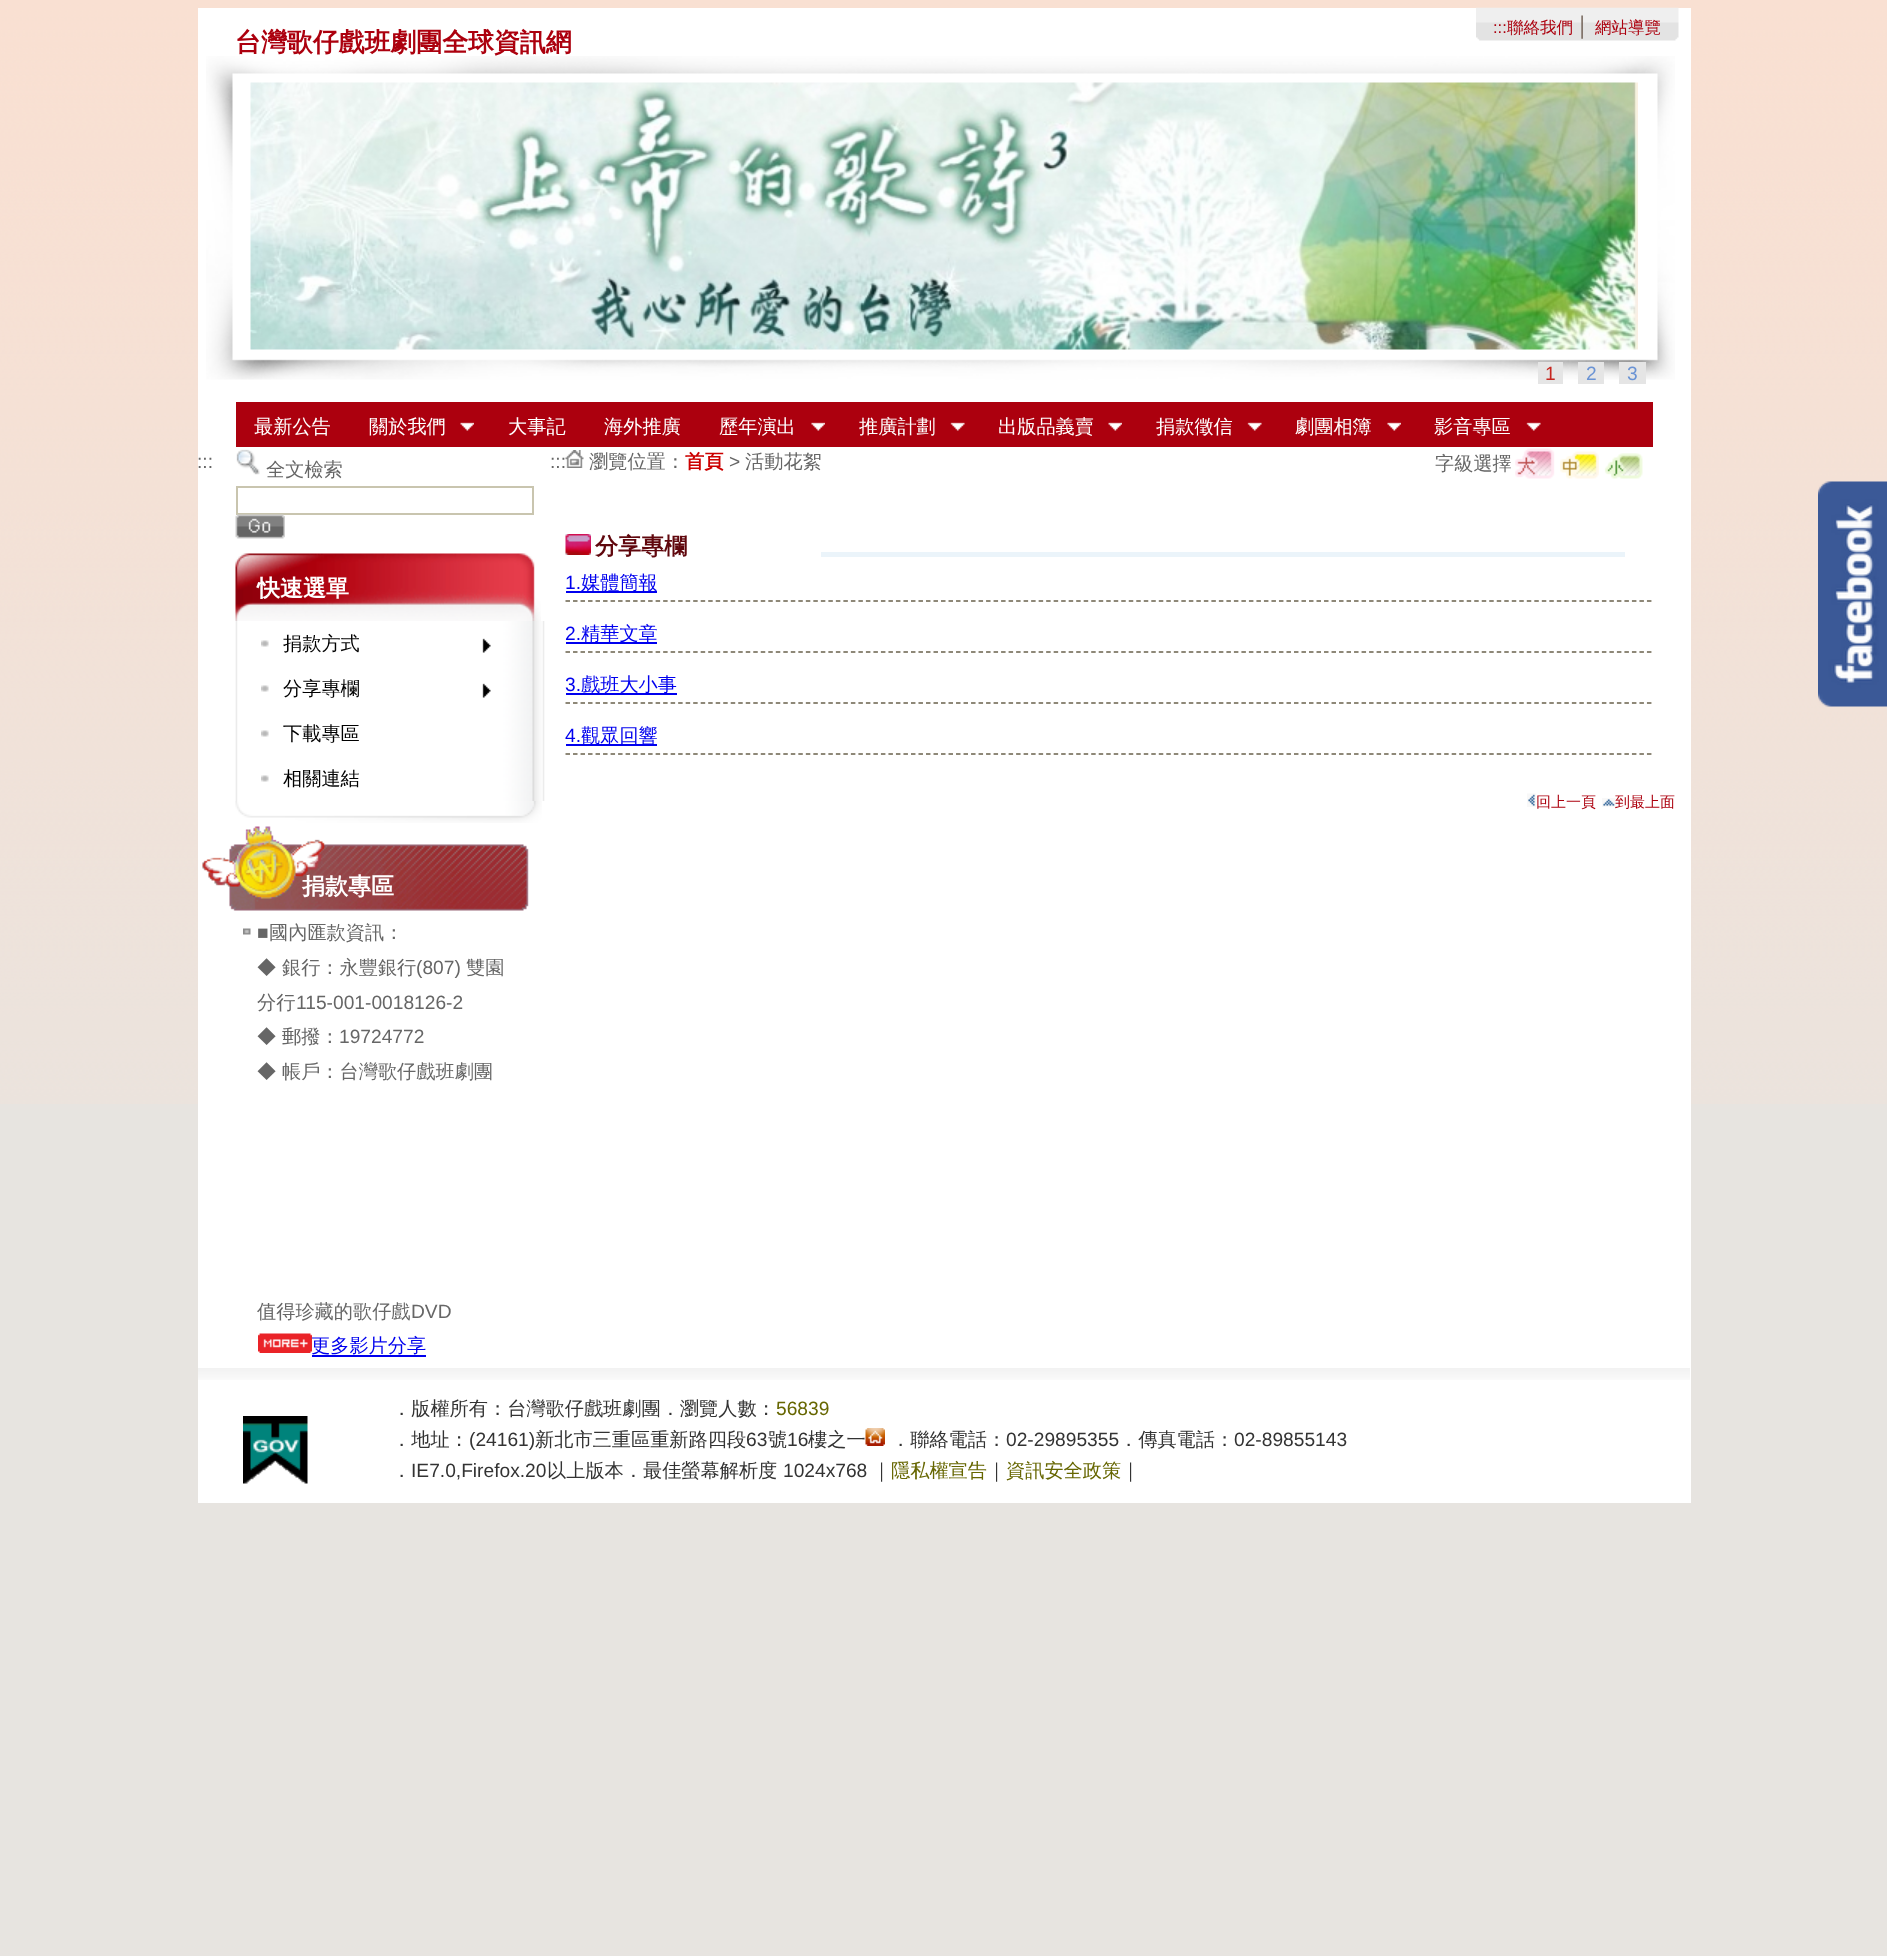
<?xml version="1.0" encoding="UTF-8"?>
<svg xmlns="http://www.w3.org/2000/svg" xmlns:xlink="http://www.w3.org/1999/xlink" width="1887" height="1956">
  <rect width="100%" height="100%" fill="#e7e4e0" />
  <image x="0" y="0" width="1887" height="1104" xlink:href="image1.png" />
  <rect x="198" y="8" width="1493" height="1495" fill="#ffffff" />
  <image x="1476" y="7" width="203" height="34" xlink:href="image2.png" />
  <image x="206" y="56" width="1469" height="324" xlink:href="image3.png" />
  <image x="250" y="82" width="1388" height="268" xlink:href="image4.png" />
  <rect x="1538" y="362" width="25" height="22" fill="#e5e5e5" />
  <rect x="1578" y="362" width="26" height="22" fill="#e5e5e5" />
  <rect x="1619" y="362" width="27" height="22" fill="#e5e5e5" />
  <rect x="236" y="402" width="1417" height="45" fill="#ac000e" />
  <image x="460" y="422" width="14" height="9" xlink:href="image5.png" />
  <image x="811" y="422" width="14" height="9" xlink:href="image6.png" />
  <image x="950" y="422" width="15" height="9" xlink:href="image7.png" />
  <image x="1108" y="422" width="14" height="9" xlink:href="image5.png" />
  <image x="1247" y="422" width="15" height="9" xlink:href="image7.png" />
  <image x="1387" y="422" width="14" height="9" xlink:href="image6.png" />
  <image x="1526" y="422" width="15" height="9" xlink:href="image7.png" />
  <image x="236" y="449" width="24" height="26" xlink:href="image8.png" />
  <rect x="237" y="487" width="296" height="27" fill="none" stroke="#c9c5af" stroke-width="2" />
  <image x="235" y="514" width="50" height="25" xlink:href="image9.png" />
  <image x="235" y="553" width="306" height="68" xlink:href="image10.png" />
  <image x="235" y="801" width="307" height="22" xlink:href="image11.png" />
  <image x="235" y="621" width="310" height="45" xlink:href="image12.png" />
  <image x="261" y="640" width="8" height="7" xlink:href="image13.png" />
  <image x="482" y="638" width="9" height="15" xlink:href="image14.png" />
  <image x="235" y="666" width="310" height="45" xlink:href="image12.png" />
  <image x="261" y="685" width="8" height="7" xlink:href="image13.png" />
  <image x="482" y="683" width="9" height="15" xlink:href="image14.png" />
  <image x="235" y="711" width="310" height="45" xlink:href="image15.png" />
  <image x="261" y="730" width="8" height="7" xlink:href="image13.png" />
  <image x="235" y="756" width="310" height="45" xlink:href="image12.png" />
  <image x="261" y="775" width="8" height="7" xlink:href="image13.png" />
  <image x="202" y="826" width="327" height="85" xlink:href="image16.png" />
  <image x="243" y="928" width="8" height="7" xlink:href="image17.png" />
  <image x="258" y="1333" width="54" height="20" xlink:href="image18.png" />
  <rect x="312" y="1355" width="114" height="2" fill="#0000ee" />
  <image x="565" y="450" width="19" height="18" xlink:href="image19.png" />
  <image x="1515" y="448" width="40" height="31" xlink:href="image20.png" />
  <image x="1560" y="451" width="39" height="28" xlink:href="image21.png" />
  <image x="1604" y="453" width="39" height="26" xlink:href="image22.png" />
  <image x="565" y="534" width="26" height="21" xlink:href="image23.png" />
  <rect x="821" y="552" width="804" height="5" fill="#ebf4fa" />
  <path d="M 565.5 601 h 1087.5" fill="none" stroke="#6a624c" stroke-width="1.5" stroke-dasharray="4.5 3.01" />
  <rect x="566" y="591" width="91" height="2" fill="#0000ee" />
  <path d="M 565.5 652 h 1087.5" fill="none" stroke="#6a624c" stroke-width="1.5" stroke-dasharray="4.5 3.01" />
  <rect x="566" y="642" width="91" height="2" fill="#0000ee" />
  <path d="M 565.5 703 h 1087.5" fill="none" stroke="#6a624c" stroke-width="1.5" stroke-dasharray="4.5 3.01" />
  <rect x="566" y="693" width="111" height="2" fill="#0000ee" />
  <path d="M 565.5 754 h 1087.5" fill="none" stroke="#6a624c" stroke-width="1.5" stroke-dasharray="4.5 3.01" />
  <rect x="566" y="744" width="91" height="2" fill="#0000ee" />
  <image x="1527" y="793" width="9" height="14" xlink:href="image24.png" />
  <image x="1602" y="798" width="14" height="9" xlink:href="image25.png" />
  <image x="198" y="1368" width="1492" height="12" xlink:href="image26.png" />
  <image x="243" y="1416" width="65" height="68" xlink:href="image27.png" />
  <image x="865" y="1428" width="20" height="18" xlink:href="image28.png" />
  <image x="1818" y="481" width="69" height="226" xlink:href="image29.png" />
  <text x="235" y="51" style="font-family: WenQuanYi Zen Hei; font-size: 25.9px; font-weight: bold; fill: #ac000e">台灣歌仔戲班劇團全球資訊網</text>
  <text x="1493" y="33" style="font-family: Liberation Sans; font-size: 16.5px; fill: #ac000e">:::</text>
  <text x="1507" y="33" style="font-family: WenQuanYi Zen Hei; font-size: 16.5px; font-weight: 500; fill: #ac000e">聯絡我們</text>
  <text x="1577" y="33" style="font-family: Liberation Sans; font-size: 19.2px; fill: #69574b">│</text>
  <text x="1595" y="33" style="font-family: WenQuanYi Zen Hei; font-size: 16.5px; font-weight: 500; fill: #ac000e">網站導覽</text>
  <text x="1545" y="380" style="font-family: Liberation Sans; font-size: 19.2px; fill: #c6261f">1</text>
  <text x="1586" y="380" style="font-family: Liberation Sans; font-size: 19.2px; fill: #6a93d4">2</text>
  <text x="1627" y="380" style="font-family: Liberation Sans; font-size: 19.2px; fill: #6a93d4">3</text>
  <text x="254" y="433" style="font-family: WenQuanYi Zen Hei; font-size: 19.2px; font-weight: 500; fill: #ffffff">最新公告</text>
  <text x="369" y="433" style="font-family: WenQuanYi Zen Hei; font-size: 19.2px; font-weight: 500; fill: #ffffff">關於我們</text>
  <text x="508" y="433" style="font-family: WenQuanYi Zen Hei; font-size: 19.2px; font-weight: 500; fill: #ffffff">大事記</text>
  <text x="604" y="433" style="font-family: WenQuanYi Zen Hei; font-size: 19.2px; font-weight: 500; fill: #ffffff">海外推廣</text>
  <text x="719" y="433" style="font-family: WenQuanYi Zen Hei; font-size: 19.2px; font-weight: 500; fill: #ffffff">歷年演出</text>
  <text x="859" y="433" style="font-family: WenQuanYi Zen Hei; font-size: 19.2px; font-weight: 500; fill: #ffffff">推廣計劃</text>
  <text x="998" y="433" style="font-family: WenQuanYi Zen Hei; font-size: 19.2px; font-weight: 500; fill: #ffffff">出版品義賣</text>
  <text x="1156" y="433" style="font-family: WenQuanYi Zen Hei; font-size: 19.2px; font-weight: 500; fill: #ffffff">捐款徵信</text>
  <text x="1295" y="433" style="font-family: WenQuanYi Zen Hei; font-size: 19.2px; font-weight: 500; fill: #ffffff">劇團相簿</text>
  <text x="1434" y="433" style="font-family: WenQuanYi Zen Hei; font-size: 19.2px; font-weight: 500; fill: #ffffff">影音專區</text>
  <text x="197" y="468" style="font-family: Liberation Sans; font-size: 19.2px; fill: #666666">:::</text>
  <text x="266" y="476" style="font-family: WenQuanYi Zen Hei; font-size: 19.2px; font-weight: 500; fill: #666666">全文檢索</text>
  <text x="257" y="596" style="font-family: WenQuanYi Zen Hei; font-size: 23px; font-weight: bold; fill: #ffffff">快速選單</text>
  <text x="283" y="650" style="font-family: WenQuanYi Zen Hei; font-size: 19.2px; font-weight: 500; fill: #000000">捐款方式</text>
  <text x="283" y="695" style="font-family: WenQuanYi Zen Hei; font-size: 19.2px; font-weight: 500; fill: #000000">分享專欄</text>
  <text x="283" y="740" style="font-family: WenQuanYi Zen Hei; font-size: 19.2px; font-weight: 500; fill: #000000">下載專區</text>
  <text x="283" y="785" style="font-family: WenQuanYi Zen Hei; font-size: 19.2px; font-weight: 500; fill: #000000">相關連結</text>
  <text x="302" y="894" style="font-family: WenQuanYi Zen Hei; font-size: 23px; font-weight: bold; fill: #ffffff">捐款專區</text>
  <text x="257" y="939" style="font-family: Liberation Sans; font-size: 19.2px; fill: #666666">■</text>
  <text x="269" y="939" style="font-family: WenQuanYi Zen Hei; font-size: 19.2px; font-weight: 500; fill: #666666">國內匯款資訊：</text>
  <text x="257" y="974" style="font-family: WenQuanYi Zen Hei; font-size: 19.2px; font-weight: 500; fill: #666666">◆ 銀行：永豐銀行</text>
  <text x="416" y="974" style="font-family: Liberation Sans; font-size: 19.2px; fill: #666666">(807)</text>
  <text x="466" y="974" style="font-family: WenQuanYi Zen Hei; font-size: 19.2px; font-weight: 500; fill: #666666">雙園</text>
  <text x="257" y="1009" style="font-family: WenQuanYi Zen Hei; font-size: 19.2px; font-weight: 500; fill: #666666">分行</text>
  <text x="296" y="1009" style="font-family: Liberation Sans; font-size: 19.2px; fill: #666666">115-001-0018126-2</text>
  <text x="257" y="1043" style="font-family: WenQuanYi Zen Hei; font-size: 19.2px; font-weight: 500; fill: #666666">◆ 郵撥：</text>
  <text x="339" y="1043" style="font-family: Liberation Sans; font-size: 19.2px; fill: #666666">19724772</text>
  <text x="257" y="1078" style="font-family: WenQuanYi Zen Hei; font-size: 19.2px; font-weight: 500; fill: #666666">◆ 帳戶：台灣歌仔戲班劇團</text>
  <text x="257" y="1318" style="font-family: WenQuanYi Zen Hei; font-size: 19.2px; font-weight: 500; fill: #666666">值得珍藏的歌仔戲</text>
  <text x="411" y="1318" style="font-family: Liberation Sans; font-size: 19.2px; fill: #666666">DVD</text>
  <text x="311" y="1352" style="font-family: WenQuanYi Zen Hei; font-size: 19.2px; font-weight: 500; fill: #0000ee">更多影片分享</text>
  <text x="550" y="468" style="font-family: Liberation Sans; font-size: 19.2px; fill: #666666">:::</text>
  <text x="589" y="468" style="font-family: WenQuanYi Zen Hei; font-size: 19.2px; font-weight: 500; fill: #666666">瀏覽位置：</text>
  <text x="685" y="468" style="font-family: WenQuanYi Zen Hei; font-size: 19.2px; font-weight: bold; fill: #cc0000">首頁</text>
  <text x="729" y="468" style="font-family: Liberation Sans; font-size: 19.2px; fill: #666666">&gt;</text>
  <text x="745" y="468" style="font-family: WenQuanYi Zen Hei; font-size: 19.2px; font-weight: 500; fill: #666666">活動花絮</text>
  <text x="1435" y="470" style="font-family: WenQuanYi Zen Hei; font-size: 19.2px; font-weight: 500; fill: #666666">字級選擇</text>
  <text x="595" y="554" style="font-family: WenQuanYi Zen Hei; font-size: 23px; font-weight: bold; fill: #60070d">分享專欄</text>
  <text x="565" y="589" style="font-family: Liberation Sans; font-size: 19.2px; fill: #0000ee">1.</text>
  <text x="581" y="589" style="font-family: WenQuanYi Zen Hei; font-size: 19.2px; font-weight: 500; fill: #0000ee">媒體簡報</text>
  <text x="565" y="640" style="font-family: Liberation Sans; font-size: 19.2px; fill: #0000ee">2.</text>
  <text x="581" y="640" style="font-family: WenQuanYi Zen Hei; font-size: 19.2px; font-weight: 500; fill: #0000ee">精華文章</text>
  <text x="565" y="691" style="font-family: Liberation Sans; font-size: 19.2px; fill: #0000ee">3.</text>
  <text x="581" y="691" style="font-family: WenQuanYi Zen Hei; font-size: 19.2px; font-weight: 500; fill: #0000ee">戲班大小事</text>
  <text x="565" y="742" style="font-family: Liberation Sans; font-size: 19.2px; fill: #0000ee">4.</text>
  <text x="581" y="742" style="font-family: WenQuanYi Zen Hei; font-size: 19.2px; font-weight: 500; fill: #0000ee">觀眾回響</text>
  <text x="1536" y="807" style="font-family: WenQuanYi Zen Hei; font-size: 15px; font-weight: 500; fill: #ac000e">回上一頁</text>
  <text x="1615" y="807" style="font-family: WenQuanYi Zen Hei; font-size: 15px; font-weight: 500; fill: #ac000e">到最上面</text>
  <text x="392" y="1415" style="font-family: WenQuanYi Zen Hei; font-size: 19.2px; font-weight: 500; fill: #333333">．版權所有：台灣歌仔戲班劇團．瀏覽人數：</text>
  <text x="776" y="1415" style="font-family: Liberation Sans; font-size: 19.2px; fill: #666600">56839</text>
  <text x="392" y="1446" style="font-family: WenQuanYi Zen Hei; font-size: 19.2px; font-weight: 500; fill: #333333">．地址：</text>
  <text x="469" y="1446" style="font-family: Liberation Sans; font-size: 19.2px; fill: #333333">(24161)</text>
  <text x="535" y="1446" style="font-family: WenQuanYi Zen Hei; font-size: 19.2px; font-weight: 500; fill: #333333">新北市三重區重新路四段</text>
  <text x="746" y="1446" style="font-family: Liberation Sans; font-size: 19.2px; fill: #333333">63</text>
  <text x="768" y="1446" style="font-family: WenQuanYi Zen Hei; font-size: 19.2px; font-weight: 500; fill: #333333">號</text>
  <text x="787" y="1446" style="font-family: Liberation Sans; font-size: 19.2px; fill: #333333">16</text>
  <text x="808" y="1446" style="font-family: WenQuanYi Zen Hei; font-size: 19.2px; font-weight: 500; fill: #333333">樓之一</text>
  <text x="891" y="1446" style="font-family: WenQuanYi Zen Hei; font-size: 19.2px; font-weight: 500; fill: #333333">．聯絡電話：</text>
  <text x="1006" y="1446" style="font-family: Liberation Sans; font-size: 19.2px; fill: #333333">02-29895355</text>
  <text x="1119" y="1446" style="font-family: WenQuanYi Zen Hei; font-size: 19.2px; font-weight: 500; fill: #333333">．傳真電話：</text>
  <text x="1234" y="1446" style="font-family: Liberation Sans; font-size: 19.2px; fill: #333333">02-89855143</text>
  <text x="392" y="1477" style="font-family: WenQuanYi Zen Hei; font-size: 19.2px; font-weight: 500; fill: #333333">．</text>
  <text x="411" y="1477" style="font-family: Liberation Sans; font-size: 19.2px; fill: #333333">IE7.0,Firefox.20</text>
  <text x="547" y="1477" style="font-family: WenQuanYi Zen Hei; font-size: 19.2px; font-weight: 500; fill: #333333">以上版本．最佳螢幕解析度</text>
  <text x="783" y="1477" style="font-family: Liberation Sans; font-size: 19.2px; fill: #333333">1024x768</text>
  <text x="872" y="1477" style="font-family: WenQuanYi Zen Hei; font-size: 19.2px; font-weight: 500; fill: #333333">｜</text>
  <text x="891" y="1477" style="font-family: WenQuanYi Zen Hei; font-size: 19.2px; font-weight: 500; fill: #666600">隱私權宣告</text>
  <text x="987" y="1477" style="font-family: WenQuanYi Zen Hei; font-size: 19.2px; font-weight: 500; fill: #333333">｜</text>
  <text x="1006" y="1477" style="font-family: WenQuanYi Zen Hei; font-size: 19.2px; font-weight: 500; fill: #666600">資訊安全政策</text>
  <text x="1121" y="1477" style="font-family: WenQuanYi Zen Hei; font-size: 19.2px; font-weight: 500; fill: #333333">｜</text>
</svg>
